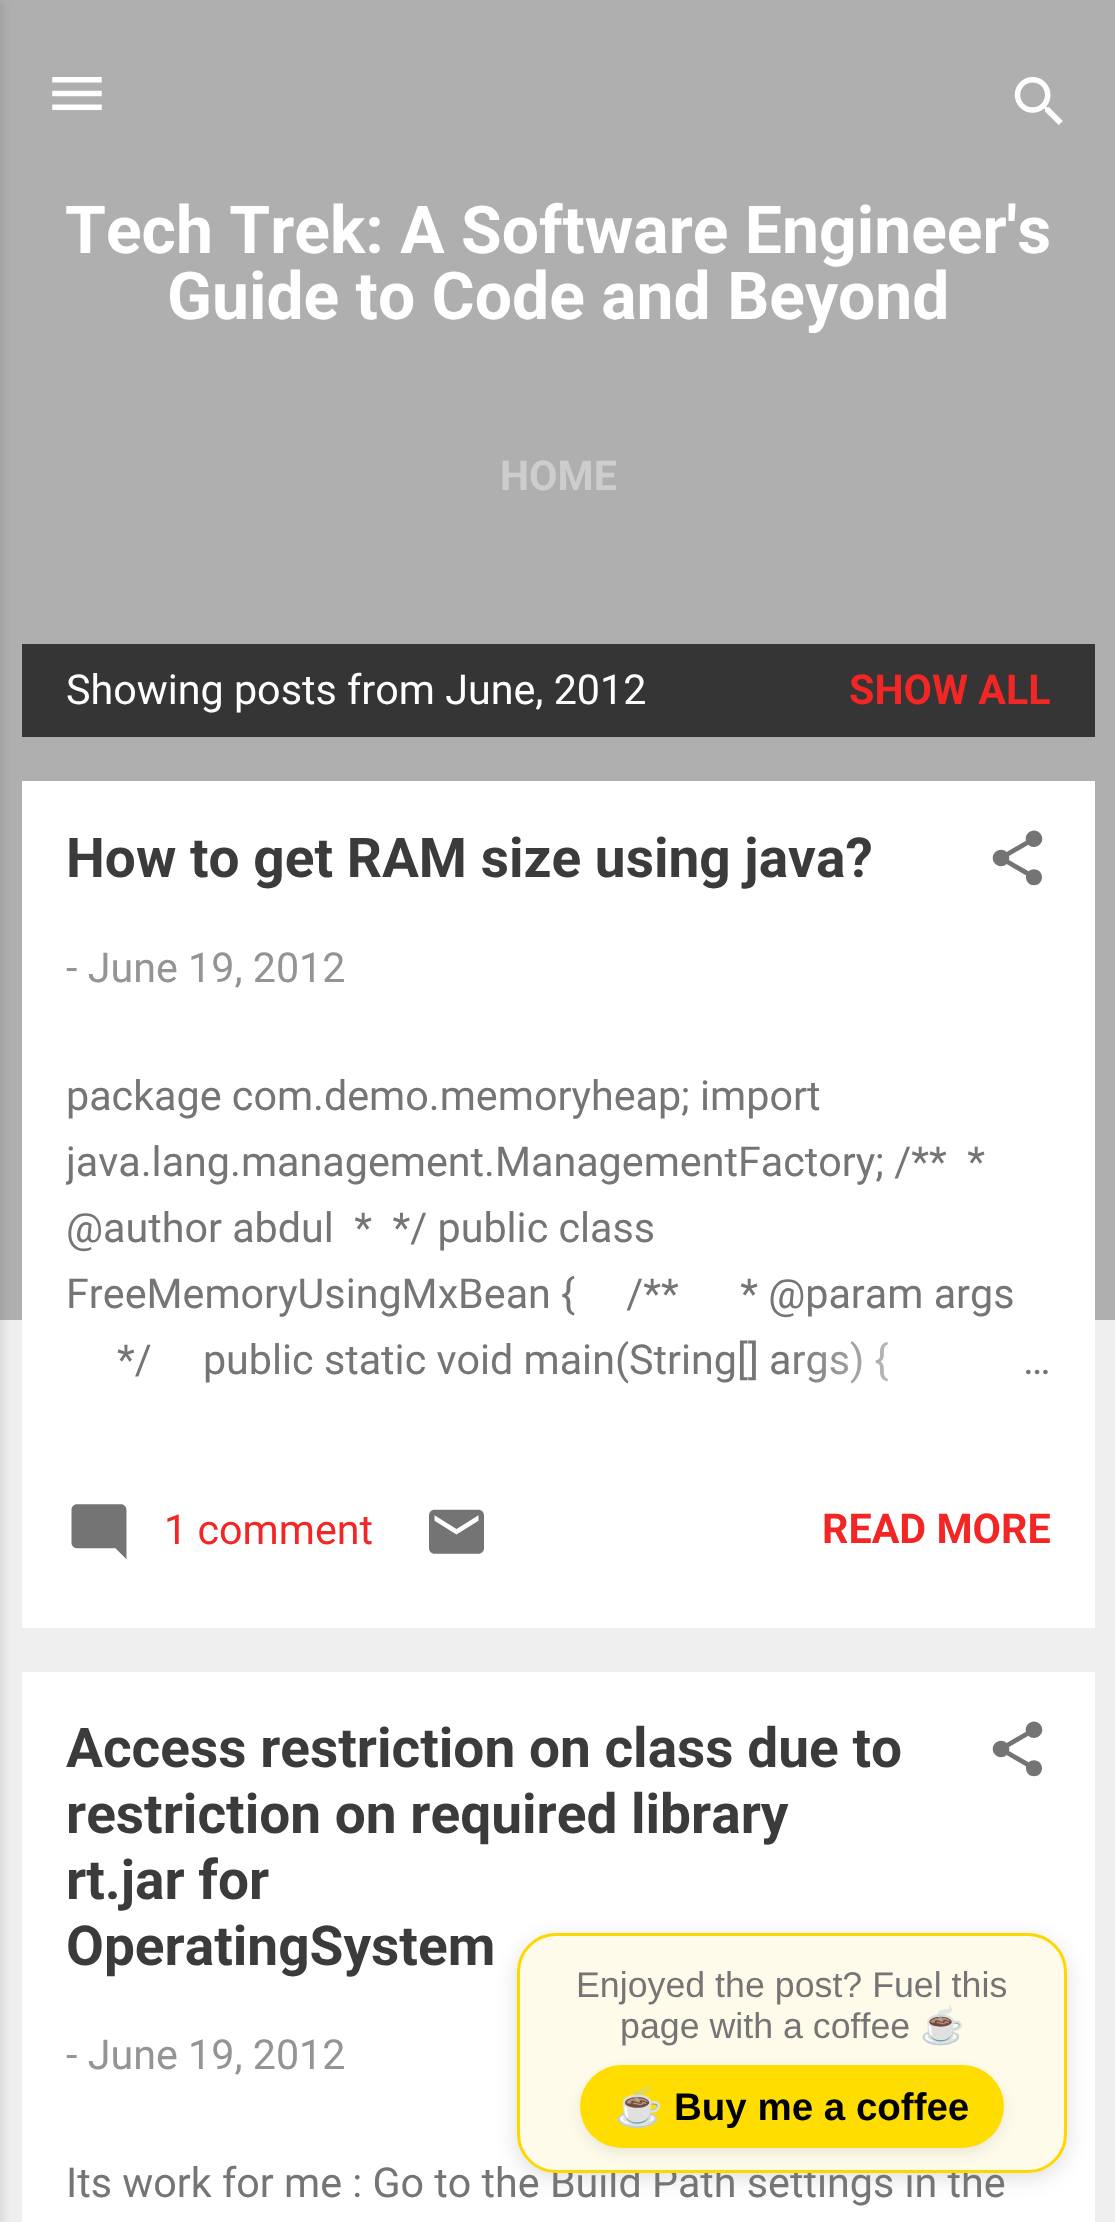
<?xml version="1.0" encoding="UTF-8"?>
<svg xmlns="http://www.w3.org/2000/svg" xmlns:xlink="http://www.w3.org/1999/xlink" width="1115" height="2222">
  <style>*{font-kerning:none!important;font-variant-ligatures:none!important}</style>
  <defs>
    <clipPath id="clip1"><rect x="66" y="1064" width="985" height="330" /></clipPath>
    <linearGradient id="g1" gradientUnits="userSpaceOnUse" x1="1051" y1="1361" x2="787" y2="1361"><stop offset="0" stop-color="#ffffff" /><stop offset="0.2" stop-color="#ffffff" /><stop offset="1" stop-color="#ffffff" stop-opacity="0" /></linearGradient>
  </defs>
  <rect width="100%" height="100%" fill="#efefef" />
  <rect width="1115" height="1320" fill="#afafaf" />
  <rect x="-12" y="3" width="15" height="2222" fill="#000000" fill-opacity="0.1" filter="blur(4px)" />
  <image x="52" y="77" width="50" height="33" xlink:href="image1.png" />
  <image x="1014" y="77" width="49" height="48" xlink:href="image2.png" />
  <rect x="22" y="644" width="1073" height="93" fill="#353535" />
  <rect x="22" y="781" width="1073" height="847" fill="#ffffff" />
  <image x="992" y="830" width="51" height="56" xlink:href="image3.png" />
  <image x="71" y="1504" width="56" height="55" xlink:href="image4.png" />
  <image x="429" y="1509" width="55" height="45" xlink:href="image5.png" />
  <rect x="22" y="1672" width="1073" height="550" fill="#ffffff" />
  <image x="992" y="1721" width="51" height="56" xlink:href="image3.png" />
  <rect x="517" y="1939" width="550" height="239" rx="39" fill="#000000" fill-opacity="0.13" filter="blur(11px)" />
  <text x="65" y="253" style="font-family: Roboto; font-size: 66px; font-weight: bold; fill: #ffffff">Tech Trek: A Software Engineer's</text>
  <text x="167" y="319" style="font-family: Roboto; font-size: 66px; font-weight: bold; fill: #ffffff">Guide to Code and Beyond</text>
  <text x="500" y="490" style="font-family: Roboto; font-size: 41.25px; font-weight: bold; fill: #cdcdcd">HOME</text>
  <text x="66" y="704" style="font-family: Roboto; font-size: 41.25px; fill: #ffffff">Showing posts from June, 2012</text>
  <text x="849" y="704" style="font-family: Roboto; font-size: 41.25px; font-weight: bold; fill: #f32626">SHOW ALL</text>
  <text x="66" y="877" style="font-family: Roboto; font-size: 55px; font-weight: bold; fill: #3b3b3b">How to get RAM size using java?</text>
  <text x="66" y="982" style="font-family: Roboto; font-size: 41.25px; fill: #949494">- June 19, 2012</text>
  <text x="66" y="1110" style="font-family: Roboto; font-size: 41.25px; fill: #757575">package com.demo.memoryheap; import</text>
  <g clip-path="url(#clip1)">
    <text x="66" y="1176" style="font-family: Roboto; font-size: 41.25px; fill: #757575" xml:space="preserve">java.lang.management.ManagementFactory; /**  *</text>
  </g>
  <text x="66" y="1242" style="font-family: Roboto; font-size: 41.25px; fill: #757575" xml:space="preserve">@author abdul  *  */ public class</text>
  <text x="66" y="1308" style="font-family: Roboto; font-size: 41.25px; fill: #757575" xml:space="preserve">FreeMemoryUsingMxBean {     /**      * @param args</text>
  <text x="117" y="1374" style="font-family: Roboto; font-size: 41.25px; fill: #757575" xml:space="preserve">*/     public static void main(String[] args) {</text>
  <rect x="795" y="1341" width="94" height="43" fill="url(#g1)" />
  <text x="1023" y="1374" style="font-family: Roboto; font-size: 41.25px; fill: #757575">…</text>
  <text x="164" y="1544" style="font-family: Roboto; font-size: 41.25px; fill: #f32626">1 comment</text>
  <text x="822" y="1543" style="font-family: Roboto; font-size: 41.25px; font-weight: bold; fill: #f32626">READ MORE</text>
  <text x="66" y="1767" style="font-family: Roboto; font-size: 55px; font-weight: bold; fill: #3b3b3b">Access restriction on class due to</text>
  <text x="66" y="1833" style="font-family: Roboto; font-size: 55px; font-weight: bold; fill: #3b3b3b">restriction on required library</text>
  <text x="66" y="1899" style="font-family: Roboto; font-size: 55px; font-weight: bold; fill: #3b3b3b">rt.jar for</text>
  <text x="66" y="1965" style="font-family: Roboto; font-size: 55px; font-weight: bold; fill: #3b3b3b">OperatingSystem</text>
  <text x="66" y="2069" style="font-family: Roboto; font-size: 41.25px; fill: #949494">- June 19, 2012</text>
  <text x="66" y="2197" style="font-family: Roboto; font-size: 41.25px; fill: #757575">Its work for me : Go to the Build Path settings in the</text>
  <rect x="518.5" y="1934.5" width="547" height="237" rx="37.5" fill="#fffbea" stroke="#ffd700" stroke-width="3" />
  <text x="576" y="1997" style="font-family: Liberation Sans; font-size: 35.75px; fill: #757575">Enjoyed the post? Fuel this</text>
  <text x="620" y="2038" style="font-family: Liberation Sans; font-size: 35.75px; fill: #757575">page with a coffee</text>
  <text x="920" y="2038" style="font-family: Noto Color Emoji; font-size: 35.75px; fill: #757575">☕</text>
  <rect x="580" y="2071" width="424" height="82" rx="41" fill="#000000" fill-opacity="0.08" filter="blur(7px)" />
  <rect x="580" y="2065" width="424" height="83" rx="41.5" fill="#ffdd00" />
  <text x="615" y="2120" style="font-family: Noto Color Emoji; font-size: 38.5px; font-weight: bold; fill: #000000">☕</text>
  <text x="674" y="2120" style="font-family: Liberation Sans; font-size: 38.5px; font-weight: bold; fill: #000000">Buy me a coffee</text>
</svg>
